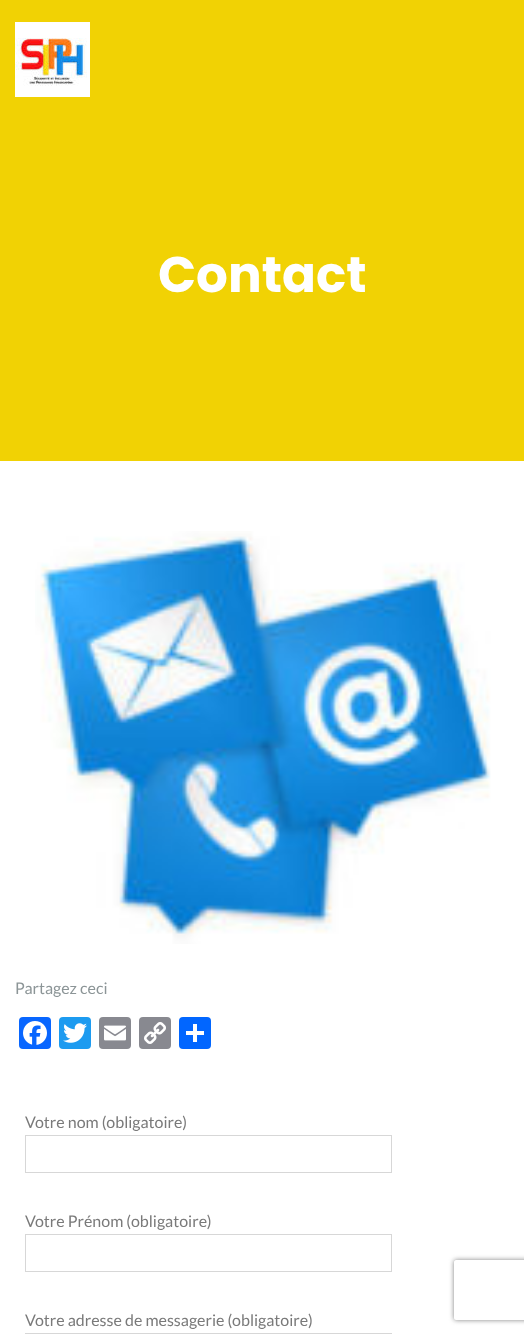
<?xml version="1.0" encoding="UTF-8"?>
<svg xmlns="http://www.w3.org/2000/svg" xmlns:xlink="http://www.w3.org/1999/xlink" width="524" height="1334">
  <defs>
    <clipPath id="clip1"><path d="M 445 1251 h 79 v 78 h -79 z m 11 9 h 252 c 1 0 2 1 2 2 v 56 c 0 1 -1 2 -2 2 h -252 c -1 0 -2 -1 -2 -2 v -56 c 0 -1 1 -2 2 -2 z" clip-rule="evenodd" /></clipPath>
  </defs>
  <rect width="100%" height="100%" fill="#ffffff" />
  <rect width="524" height="461" fill="#f1d204" />
  <image x="15" y="22" width="75" height="75" xlink:href="image1.png" />
  <image x="35" y="531" width="456" height="413" xlink:href="image2.png" />
  <rect x="19" y="1017" width="32" height="32" rx="4" fill="#0866ff" />
  <image x="23" y="1021" width="24" height="24" xlink:href="image3.png" />
  <rect x="59" y="1017" width="32" height="32" rx="4" fill="#1d9bf0" />
  <image x="63" y="1023" width="24" height="20" xlink:href="image4.png" />
  <rect x="99" y="1017" width="32" height="32" rx="4" fill="#888990" />
  <image x="104" y="1025" width="22" height="16" xlink:href="image5.png" />
  <rect x="139" y="1017" width="32" height="32" rx="4" fill="#888990" />
  <image x="144" y="1022" width="22" height="22" xlink:href="image6.png" />
  <rect x="179" y="1017" width="32" height="32" rx="4" fill="#0166ff" />
  <rect x="193" y="1024" width="4" height="18" fill="#ffffff" />
  <rect x="186" y="1031" width="18" height="4" fill="#ffffff" />
  <rect x="25.5" y="1135.5" width="366" height="37" fill="none" stroke="#d7d7d7" />
  <rect x="25.5" y="1234.5" width="366" height="37" fill="none" stroke="#d7d7d7" />
  <rect x="25.5" y="1333.5" width="366" height="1" fill="none" stroke="#d7d7d7" />
  <g clip-path="url(#clip1)">
    <rect x="454" y="1260" width="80" height="60" rx="2" fill="#808080" filter="blur(2.5px)" />
  </g>
  <text x="158" y="292" style="font-family: Poppins; font-size: 50px; font-weight: bold; fill: #ffffff">Contact</text>
  <text x="15" y="994" style="font-family: Lato; font-size: 16px; fill: #8c9597">Partagez ceci</text>
  <text x="25" y="1128" style="font-family: Lato; font-size: 16px; fill: #7a7a7a">Votre nom (obligatoire)</text>
  <text x="25" y="1227" style="font-family: Lato; font-size: 16px; fill: #7a7a7a">Votre Prénom (obligatoire)</text>
  <text x="25" y="1326" style="font-family: Lato; font-size: 16px; fill: #7a7a7a">Votre adresse de messagerie (obligatoire)</text>
</svg>
